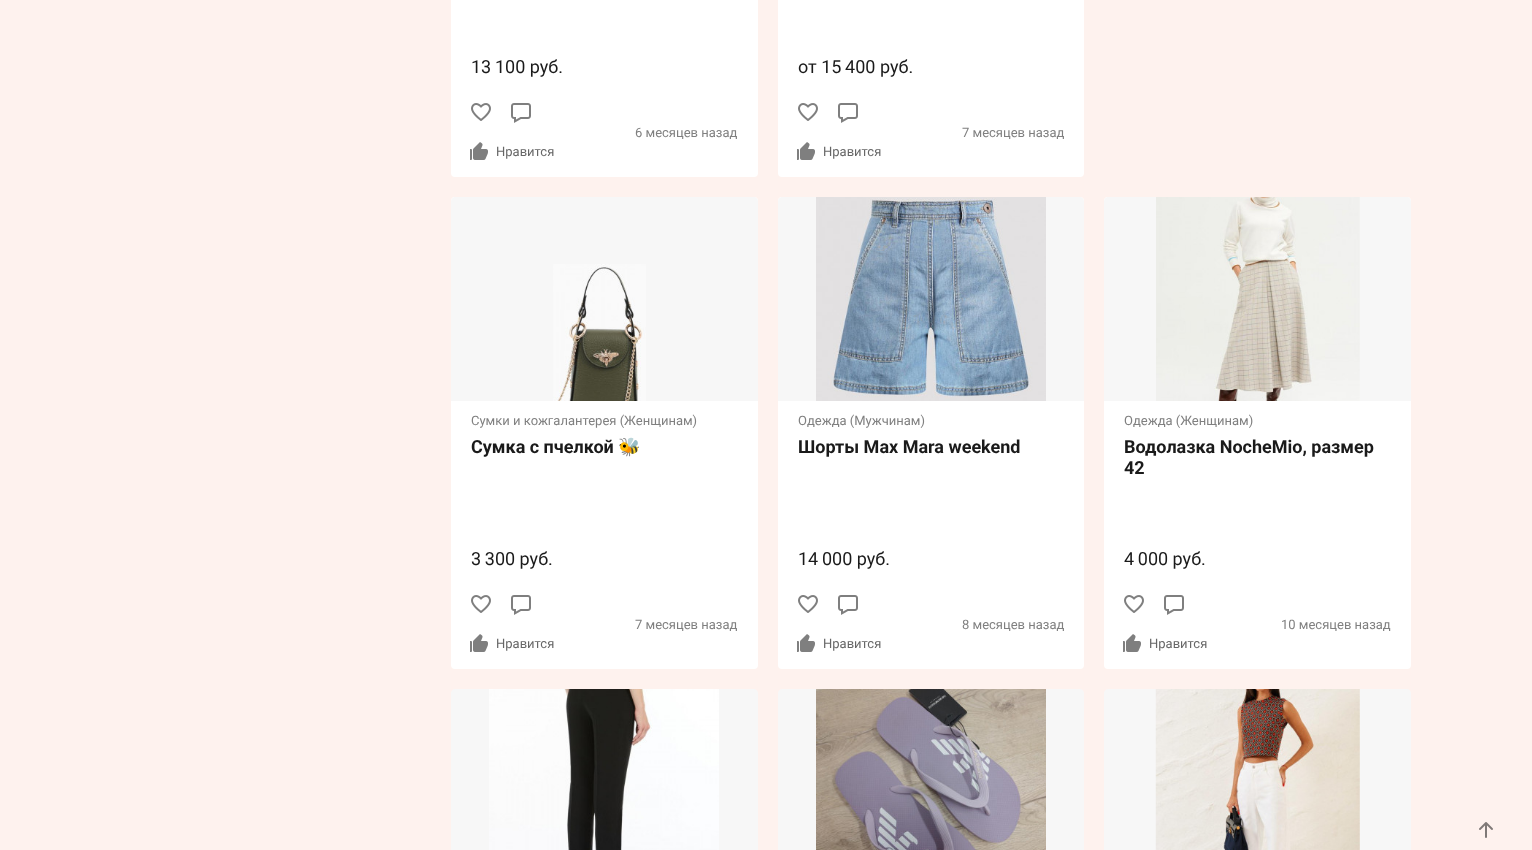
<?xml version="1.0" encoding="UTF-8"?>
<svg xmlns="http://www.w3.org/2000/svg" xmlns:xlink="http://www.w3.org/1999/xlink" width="1532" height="850">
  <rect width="100%" height="100%" fill="#fef2ee" />
  <rect x="451" y="-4" width="307" height="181" rx="4" fill="#ffffff" />
  <image x="471" y="103" width="20" height="18" xlink:href="image1.png" />
  <image x="511" y="103" width="20" height="20" xlink:href="image2.png" />
  <image x="470" y="142" width="18" height="18" xlink:href="image3.png" />
  <rect x="778" y="-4" width="306" height="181" rx="4" fill="#ffffff" />
  <image x="798" y="103" width="20" height="18" xlink:href="image1.png" />
  <image x="838" y="103" width="20" height="20" xlink:href="image2.png" />
  <image x="797" y="142" width="18" height="18" xlink:href="image3.png" />
  <rect x="451" y="197" width="307" height="472" rx="4" fill="#ffffff" />
  <path d="M 455 197 h 299 c 2 0 4 2 4 4 v 200 h -307 v -200 c 0 -2 2 -4 4 -4 z" fill="#f7f7f7" />
  <image x="553" y="264" width="93" height="137" xlink:href="image4.png" />
  <image x="471" y="595" width="20" height="18" xlink:href="image1.png" />
  <image x="511" y="595" width="20" height="20" xlink:href="image2.png" />
  <image x="470" y="634" width="18" height="18" xlink:href="image3.png" />
  <rect x="778" y="197" width="306" height="472" rx="4" fill="#ffffff" />
  <path d="M 782 197 h 298 c 2 0 4 2 4 4 v 200 h -306 v -200 c 0 -2 2 -4 4 -4 z" fill="#f7f7f7" />
  <image x="816" y="197" width="230" height="204" xlink:href="image5.png" />
  <image x="798" y="595" width="20" height="18" xlink:href="image1.png" />
  <image x="838" y="595" width="20" height="20" xlink:href="image2.png" />
  <image x="797" y="634" width="18" height="18" xlink:href="image3.png" />
  <rect x="1104" y="197" width="307" height="472" rx="4" fill="#ffffff" />
  <path d="M 1108 197 h 299 c 2 0 4 2 4 4 v 200 h -307 v -200 c 0 -2 2 -4 4 -4 z" fill="#f7f7f7" />
  <image x="1156" y="197" width="204" height="204" xlink:href="image6.png" />
  <image x="1124" y="595" width="20" height="18" xlink:href="image1.png" />
  <image x="1164" y="595" width="20" height="20" xlink:href="image2.png" />
  <image x="1123" y="634" width="18" height="18" xlink:href="image3.png" />
  <path d="M 455 689 h 299 c 2 0 4 2 4 4 v 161 h -307 v -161 c 0 -2 2 -4 4 -4 z" fill="#f7f7f7" />
  <image x="489" y="689" width="230" height="161" xlink:href="image7.png" />
  <path d="M 782 689 h 298 c 2 0 4 2 4 4 v 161 h -306 v -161 c 0 -2 2 -4 4 -4 z" fill="#f7f7f7" />
  <image x="816" y="689" width="230" height="161" xlink:href="image8.png" />
  <path d="M 1108 689 h 299 c 2 0 4 2 4 4 v 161 h -307 v -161 c 0 -2 2 -4 4 -4 z" fill="#f7f7f7" />
  <image x="1155" y="689" width="205" height="161" xlink:href="image9.png" />
  <image x="1479" y="822" width="14" height="16" xlink:href="image10.png" />
  <text x="471" y="73" style="font-family: Roboto; font-size: 18px; fill: #1a1a1a">13 100 руб.</text>
  <text x="635" y="137" style="font-family: Roboto; font-size: 13px; fill: #808080">6 месяцев назад</text>
  <text x="496" y="156" style="font-family: Roboto; font-size: 13px; fill: #666666">Нравится</text>
  <text x="798" y="73" style="font-family: Roboto; font-size: 18px; fill: #1a1a1a">от 15 400 руб.</text>
  <text x="962" y="137" style="font-family: Roboto; font-size: 13px; fill: #808080">7 месяцев назад</text>
  <text x="823" y="156" style="font-family: Roboto; font-size: 13px; fill: #666666">Нравится</text>
  <text x="471" y="425" style="font-family: Roboto; font-size: 13px; fill: #808080">Сумки и кожгалантерея (Женщинам)</text>
  <text x="471" y="453" style="font-family: Roboto; font-size: 18px; font-weight: bold; fill: #1a1a1a">Сумка с пчелкой</text>
  <text x="618" y="453" style="font-family: Noto Color Emoji; font-size: 18px; font-weight: bold; fill: #1a1a1a">🐝</text>
  <text x="471" y="565" style="font-family: Roboto; font-size: 18px; fill: #1a1a1a">3 300 руб.</text>
  <text x="635" y="629" style="font-family: Roboto; font-size: 13px; fill: #808080">7 месяцев назад</text>
  <text x="496" y="648" style="font-family: Roboto; font-size: 13px; fill: #666666">Нравится</text>
  <text x="798" y="425" style="font-family: Roboto; font-size: 13px; fill: #808080">Одежда (Мужчинам)</text>
  <text x="798" y="453" style="font-family: Roboto; font-size: 18px; font-weight: bold; fill: #1a1a1a">Шорты Max Mara weekend</text>
  <text x="798" y="565" style="font-family: Roboto; font-size: 18px; fill: #1a1a1a">14 000 руб.</text>
  <text x="962" y="629" style="font-family: Roboto; font-size: 13px; fill: #808080">8 месяцев назад</text>
  <text x="823" y="648" style="font-family: Roboto; font-size: 13px; fill: #666666">Нравится</text>
  <text x="1124" y="425" style="font-family: Roboto; font-size: 13px; fill: #808080">Одежда (Женщинам)</text>
  <text x="1124" y="453" style="font-family: Roboto; font-size: 18px; font-weight: bold; fill: #1a1a1a">Водолазка NocheMio, размер</text>
  <text x="1124" y="474" style="font-family: Roboto; font-size: 18px; font-weight: bold; fill: #1a1a1a">42</text>
  <text x="1124" y="565" style="font-family: Roboto; font-size: 18px; fill: #1a1a1a">4 000 руб.</text>
  <text x="1281" y="629" style="font-family: Roboto; font-size: 13px; fill: #808080">10 месяцев назад</text>
  <text x="1149" y="648" style="font-family: Roboto; font-size: 13px; fill: #666666">Нравится</text>
</svg>
